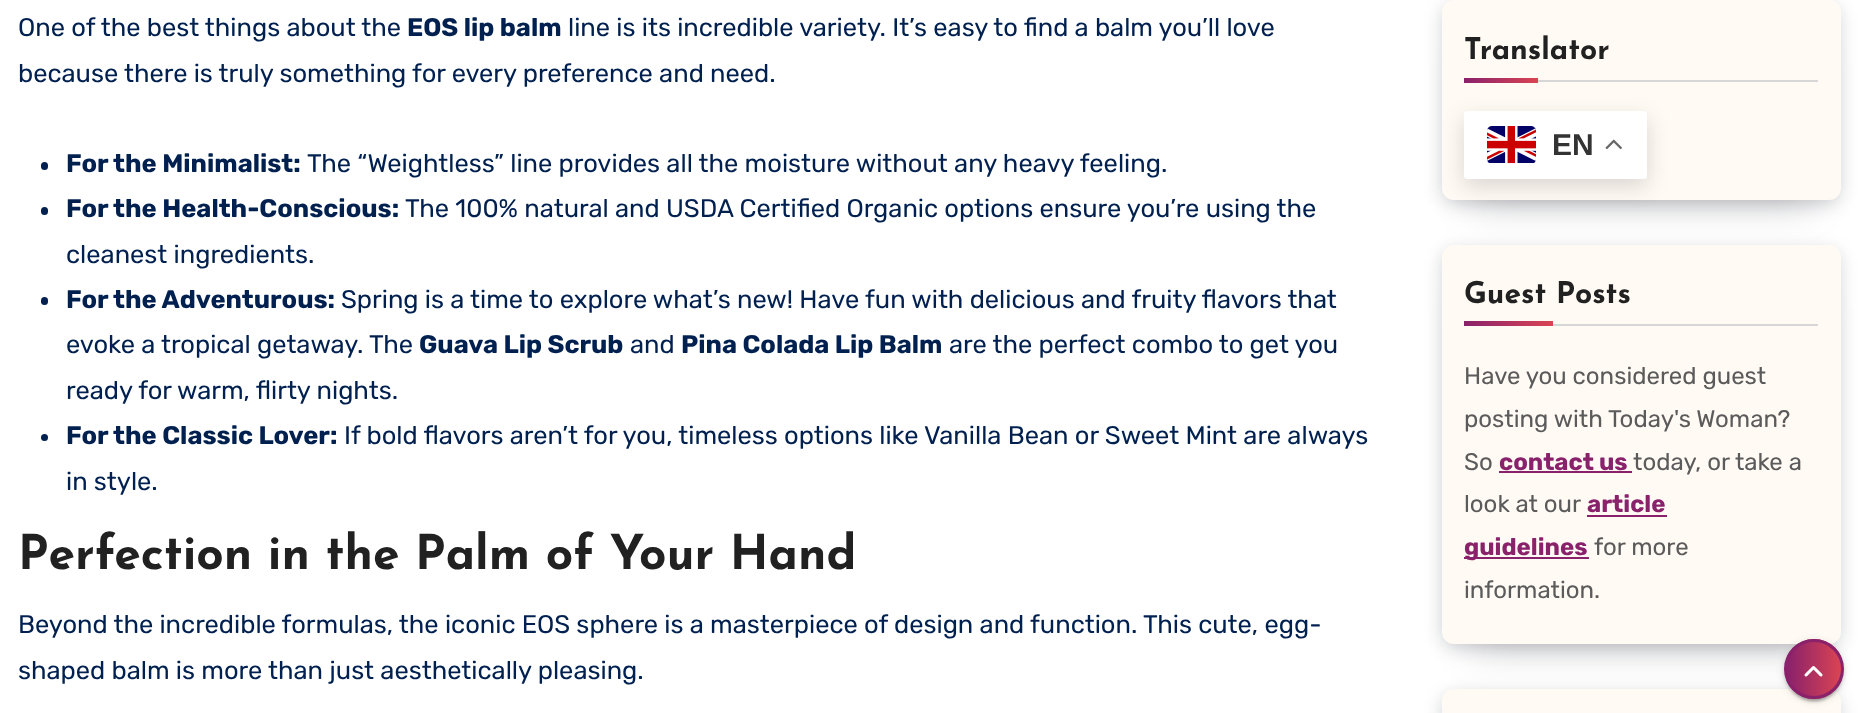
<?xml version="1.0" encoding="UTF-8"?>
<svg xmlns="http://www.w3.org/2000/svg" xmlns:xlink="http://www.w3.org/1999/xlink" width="1858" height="713">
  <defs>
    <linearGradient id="g1" gradientUnits="userSpaceOnUse" x1="1464" y1="80" x2="1538" y2="80"><stop offset="0" stop-color="#89216b" /><stop offset="1" stop-color="#da4453" /></linearGradient>
    <linearGradient id="g2" gradientUnits="userSpaceOnUse" x1="1464" y1="323" x2="1553" y2="323"><stop offset="0" stop-color="#89216b" /><stop offset="1" stop-color="#da4453" /></linearGradient>
    <clipPath id="clip1"><rect x="1784" y="639" width="60" height="60" rx="30" /></clipPath>
    <linearGradient id="g3" gradientUnits="userSpaceOnUse" x1="1787" y1="669" x2="1841" y2="669"><stop offset="0" stop-color="#89216b" /><stop offset="1" stop-color="#da4453" /></linearGradient>
  </defs>
  <rect width="100%" height="100%" fill="#ffffff" />
  <rect x="41" y="162" width="7" height="8" rx="3.5" fill="#002050" />
  <rect x="41" y="207" width="7" height="8" rx="3.5" fill="#002050" />
  <rect x="41" y="297" width="7" height="8" rx="3.5" fill="#002050" />
  <circle cx="44.5" cy="437.5" r="3.5" fill="#002050" />
  <rect x="1472" y="63" width="339" height="140" fill="#070a19" fill-opacity="0.2" filter="blur(20px)" />
  <rect x="1443" y="6" width="396" height="197" rx="11" fill="#070a19" fill-opacity="0.2" filter="blur(9px)" />
  <rect x="1442" width="399" height="200" rx="12" fill="#fffaf4" />
  <rect x="1538" y="80" width="280" height="2" fill="#d7d7d7" />
  <rect x="1464" y="78" width="74" height="5" fill="url(#g1)" />
  <rect x="1464" y="119" width="183" height="67" rx="3" fill="#000000" fill-opacity="0.15" filter="blur(11px)" />
  <rect x="1464" y="111" width="183" height="68" rx="3" fill="#ffffff" />
  <image x="1487" y="126" width="49" height="38" xlink:href="image1.png" />
  <image x="1605" y="139" width="17" height="11" xlink:href="image2.png" />
  <rect x="1472" y="308" width="339" height="339" fill="#070a19" fill-opacity="0.2" filter="blur(20px)" />
  <rect x="1443" y="251" width="396" height="396" rx="11" fill="#070a19" fill-opacity="0.2" filter="blur(9px)" />
  <rect x="1442" y="245" width="399" height="399" rx="12" fill="#fffaf4" />
  <rect x="1553" y="324" width="265" height="2" fill="#d7d7d7" />
  <rect x="1464" y="321" width="89" height="5" fill="url(#g2)" />
  <rect x="1499" y="471" width="133" height="2" fill="#89216b" />
  <rect x="1587" y="515" width="80" height="2" fill="#89216b" />
  <rect x="1464" y="557" width="125" height="2" fill="#89216b" />
  <rect x="1443" y="695" width="396" height="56" rx="11" fill="#070a19" fill-opacity="0.2" filter="blur(9px)" />
  <rect x="1442" y="689" width="399" height="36" rx="12" fill="#fffaf4" />
  <rect x="1784" y="641" width="60" height="60" rx="30" fill="#000000" fill-opacity="0.12" filter="blur(4px)" />
  <rect x="1787" y="647" width="54" height="54" rx="27" fill="#000000" fill-opacity="0.2" filter="blur(1px)" />
  <rect x="1784" y="642" width="60" height="60" rx="30" fill="#000000" fill-opacity="0.14" filter="blur(1.5px)" />
  <g clip-path="url(#clip1)">
    <rect x="1787" y="639" width="54" height="60" fill="url(#g3)" />
  </g>
  <circle cx="1814" cy="669" r="28.5" fill="none" stroke="#89216b" stroke-width="3" />
  <image x="1804" y="666" width="19" height="11" xlink:href="image3.png" />
  <text x="18" y="36" style="font-family: Rubik; font-size: 25.5px; font-weight: 300; fill: #002050">One of the best things about the</text>
  <text x="407" y="36" style="font-family: Rubik; font-size: 25.5px; font-weight: bold; fill: #002050">EOS lip balm</text>
  <text x="568" y="36" style="font-family: Rubik; font-size: 25.5px; font-weight: 300; fill: #002050">line is its incredible variety. It’s easy to find a balm you’ll love</text>
  <text x="18" y="82" style="font-family: Rubik; font-size: 25.5px; font-weight: 300; fill: #002050">because there is truly something for every preference and need.</text>
  <text x="66" y="172" style="font-family: Rubik; font-size: 25.5px; font-weight: bold; fill: #002050">For the Minimalist:</text>
  <text x="307" y="172" style="font-family: Rubik; font-size: 25.5px; font-weight: 300; fill: #002050">The “Weightless” line provides all the moisture without any heavy feeling.</text>
  <text x="66" y="217" style="font-family: Rubik; font-size: 25.5px; font-weight: bold; fill: #002050">For the Health-Conscious:</text>
  <text x="405" y="217" style="font-family: Rubik; font-size: 25.5px; font-weight: 300; fill: #002050">The 100% natural and USDA Certified Organic options ensure you’re using the</text>
  <text x="66" y="263" style="font-family: Rubik; font-size: 25.5px; font-weight: 300; fill: #002050">cleanest ingredients.</text>
  <text x="66" y="308" style="font-family: Rubik; font-size: 25.5px; font-weight: bold; fill: #002050">For the Adventurous:</text>
  <text x="341" y="308" style="font-family: Rubik; font-size: 25.5px; font-weight: 300; fill: #002050">Spring is a time to explore what’s new! Have fun with delicious and fruity flavors that</text>
  <text x="66" y="353" style="font-family: Rubik; font-size: 25.5px; font-weight: 300; fill: #002050">evoke a tropical getaway. The</text>
  <text x="419" y="353" style="font-family: Rubik; font-size: 25.5px; font-weight: bold; fill: #002050">Guava Lip Scrub</text>
  <text x="630" y="353" style="font-family: Rubik; font-size: 25.5px; font-weight: 300; fill: #002050">and</text>
  <text x="681" y="353" style="font-family: Rubik; font-size: 25.5px; font-weight: bold; fill: #002050">Pina Colada Lip Balm</text>
  <text x="949" y="353" style="font-family: Rubik; font-size: 25.5px; font-weight: 300; fill: #002050">are the perfect combo to get you</text>
  <text x="66" y="399" style="font-family: Rubik; font-size: 25.5px; font-weight: 300; fill: #002050">ready for warm, flirty nights.</text>
  <text x="66" y="444" style="font-family: Rubik; font-size: 25.5px; font-weight: bold; fill: #002050">For the Classic Lover:</text>
  <text x="344" y="444" style="font-family: Rubik; font-size: 25.5px; font-weight: 300; fill: #002050">If bold flavors aren’t for you, timeless options like Vanilla Bean or Sweet Mint are always</text>
  <text x="66" y="490" style="font-family: Rubik; font-size: 25.5px; font-weight: 300; fill: #002050">in style.</text>
  <text x="18" y="569" style="font-family: Josefin Sans; font-size: 48px; font-weight: bold; fill: #212121">Perfection in the Palm of Your Hand</text>
  <text x="18" y="633" style="font-family: Rubik; font-size: 25.5px; font-weight: 300; fill: #002050">Beyond the incredible formulas, the iconic EOS sphere is a masterpiece of design and function. This cute, egg-</text>
  <text x="18" y="679" style="font-family: Rubik; font-size: 25.5px; font-weight: 300; fill: #002050">shaped balm is more than just aesthetically pleasing.</text>
  <text x="1464" y="59" style="font-family: Josefin Sans; font-size: 30px; font-weight: bold; fill: #212121">Translator</text>
  <text x="1552" y="155" style="font-family: Liberation Sans; font-size: 30px; font-weight: bold; fill: #333333">EN</text>
  <text x="1464" y="303" style="font-family: Josefin Sans; font-size: 30px; font-weight: bold; fill: #212121">Guest Posts</text>
  <text x="1464" y="384" style="font-family: Rubik; font-size: 24px; font-weight: 300; fill: #5b5b5b">Have you considered guest</text>
  <text x="1464" y="427" style="font-family: Rubik; font-size: 24px; font-weight: 300; fill: #5b5b5b">posting with Today's Woman?</text>
  <text x="1464" y="470" style="font-family: Rubik; font-size: 24px; font-weight: 300; fill: #5b5b5b">So</text>
  <text x="1499" y="470" style="font-family: Rubik; font-size: 24px; font-weight: bold; fill: #89216b">contact us</text>
  <text x="1633" y="470" style="font-family: Rubik; font-size: 24px; font-weight: 300; fill: #5b5b5b">today, or take a</text>
  <text x="1464" y="512" style="font-family: Rubik; font-size: 24px; font-weight: 300; fill: #5b5b5b">look at our</text>
  <text x="1587" y="512" style="font-family: Rubik; font-size: 24px; font-weight: bold; fill: #89216b">article</text>
  <text x="1464" y="555" style="font-family: Rubik; font-size: 24px; font-weight: bold; fill: #89216b">guidelines</text>
  <text x="1594" y="555" style="font-family: Rubik; font-size: 24px; font-weight: 300; fill: #5b5b5b">for more</text>
  <text x="1464" y="598" style="font-family: Rubik; font-size: 24px; font-weight: 300; fill: #5b5b5b">information.</text>
</svg>
